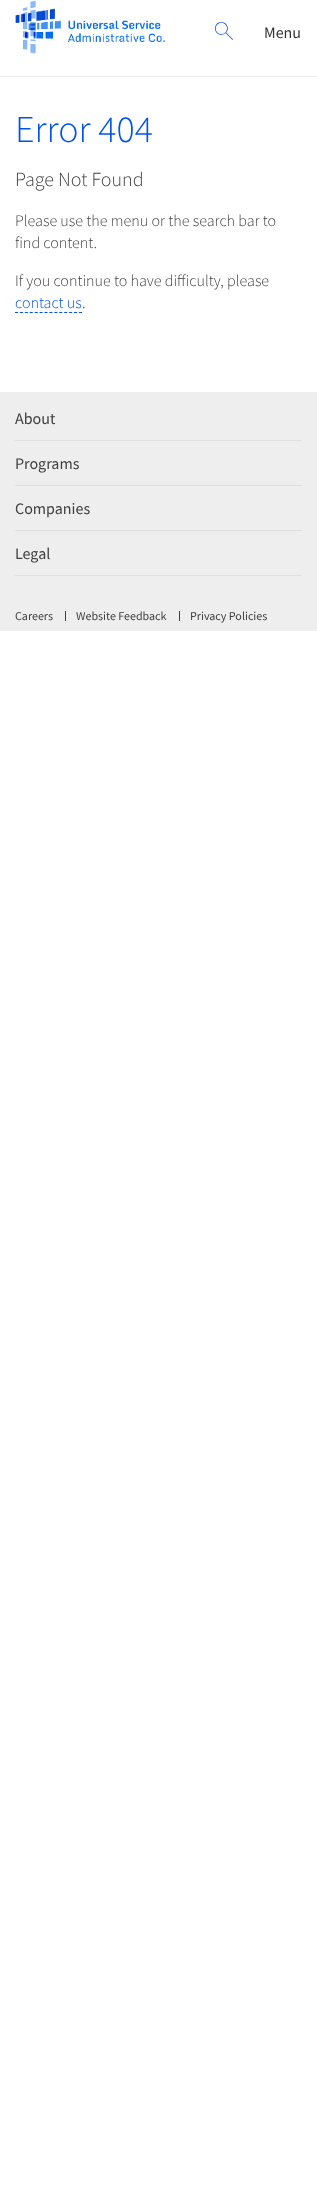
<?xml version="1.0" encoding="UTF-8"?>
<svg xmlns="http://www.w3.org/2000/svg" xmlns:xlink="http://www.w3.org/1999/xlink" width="317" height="2202">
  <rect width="100%" height="100%" fill="#ffffff" />
  <rect y="76" width="317" height="1" fill="#eeeeee" />
  <image x="15" y="0" width="150" height="54" xlink:href="image1.png" />
  <image x="215" y="22" width="18" height="18" xlink:href="image2.png" />
  <path d="M 15 312.5 h 67" fill="none" stroke="#0052eb" stroke-dasharray="3 1.92" />
  <rect y="392" width="317" height="239" fill="#eeeeee" />
  <rect x="15" y="440" width="287" height="1" fill="#e0e0e0" />
  <rect x="15" y="485" width="287" height="1" fill="#e0e0e0" />
  <rect x="15" y="530" width="287" height="1" fill="#e0e0e0" />
  <rect x="15" y="575" width="287" height="1" fill="#e0e0e0" />
  <rect x="65" y="611" width="1" height="10" fill="#404040" />
  <rect x="179" y="611" width="1" height="10" fill="#404040" />
  <text x="264" y="38" style="font-family: Source Sans Pro; font-size: 16px; fill: #333333">Menu</text>
  <text x="15" y="142" style="font-family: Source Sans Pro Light; font-size: 38px; font-weight: 300; fill: #0052eb">Error 404</text>
  <text x="15" y="186" style="font-family: Source Sans Pro Light; font-size: 20px; font-weight: 300; fill: #404040">Page Not Found</text>
  <text x="15" y="226" style="font-family: Source Sans Pro Light; font-size: 16px; font-weight: 300; fill: #404040">Please use the menu or the search bar to</text>
  <text x="15" y="248" style="font-family: Source Sans Pro Light; font-size: 16px; font-weight: 300; fill: #404040">find content.</text>
  <text x="15" y="286" style="font-family: Source Sans Pro Light; font-size: 16px; font-weight: 300; fill: #404040">If you continue to have difficulty, please</text>
  <text x="15" y="308" style="font-family: Source Sans Pro Light; font-size: 16px; font-weight: 300; fill: #0052eb">contact us</text>
  <text x="82" y="308" style="font-family: Source Sans Pro Light; font-size: 16px; font-weight: 300; fill: #404040">.</text>
  <text x="15" y="424" style="font-family: Source Sans Pro; font-size: 16px; fill: #404040">About</text>
  <text x="15" y="469" style="font-family: Source Sans Pro; font-size: 16px; fill: #404040">Programs</text>
  <text x="15" y="514" style="font-family: Source Sans Pro; font-size: 16px; fill: #404040">Companies</text>
  <text x="15" y="559" style="font-family: Source Sans Pro; font-size: 16px; fill: #404040">Legal</text>
  <text x="15" y="620" style="font-family: Source Sans Pro; font-size: 12px; fill: #404040">Careers</text>
  <text x="76" y="620" style="font-family: Source Sans Pro; font-size: 12px; fill: #404040">Website Feedback</text>
  <text x="190" y="620" style="font-family: Source Sans Pro; font-size: 12px; fill: #404040">Privacy Policies</text>
</svg>
